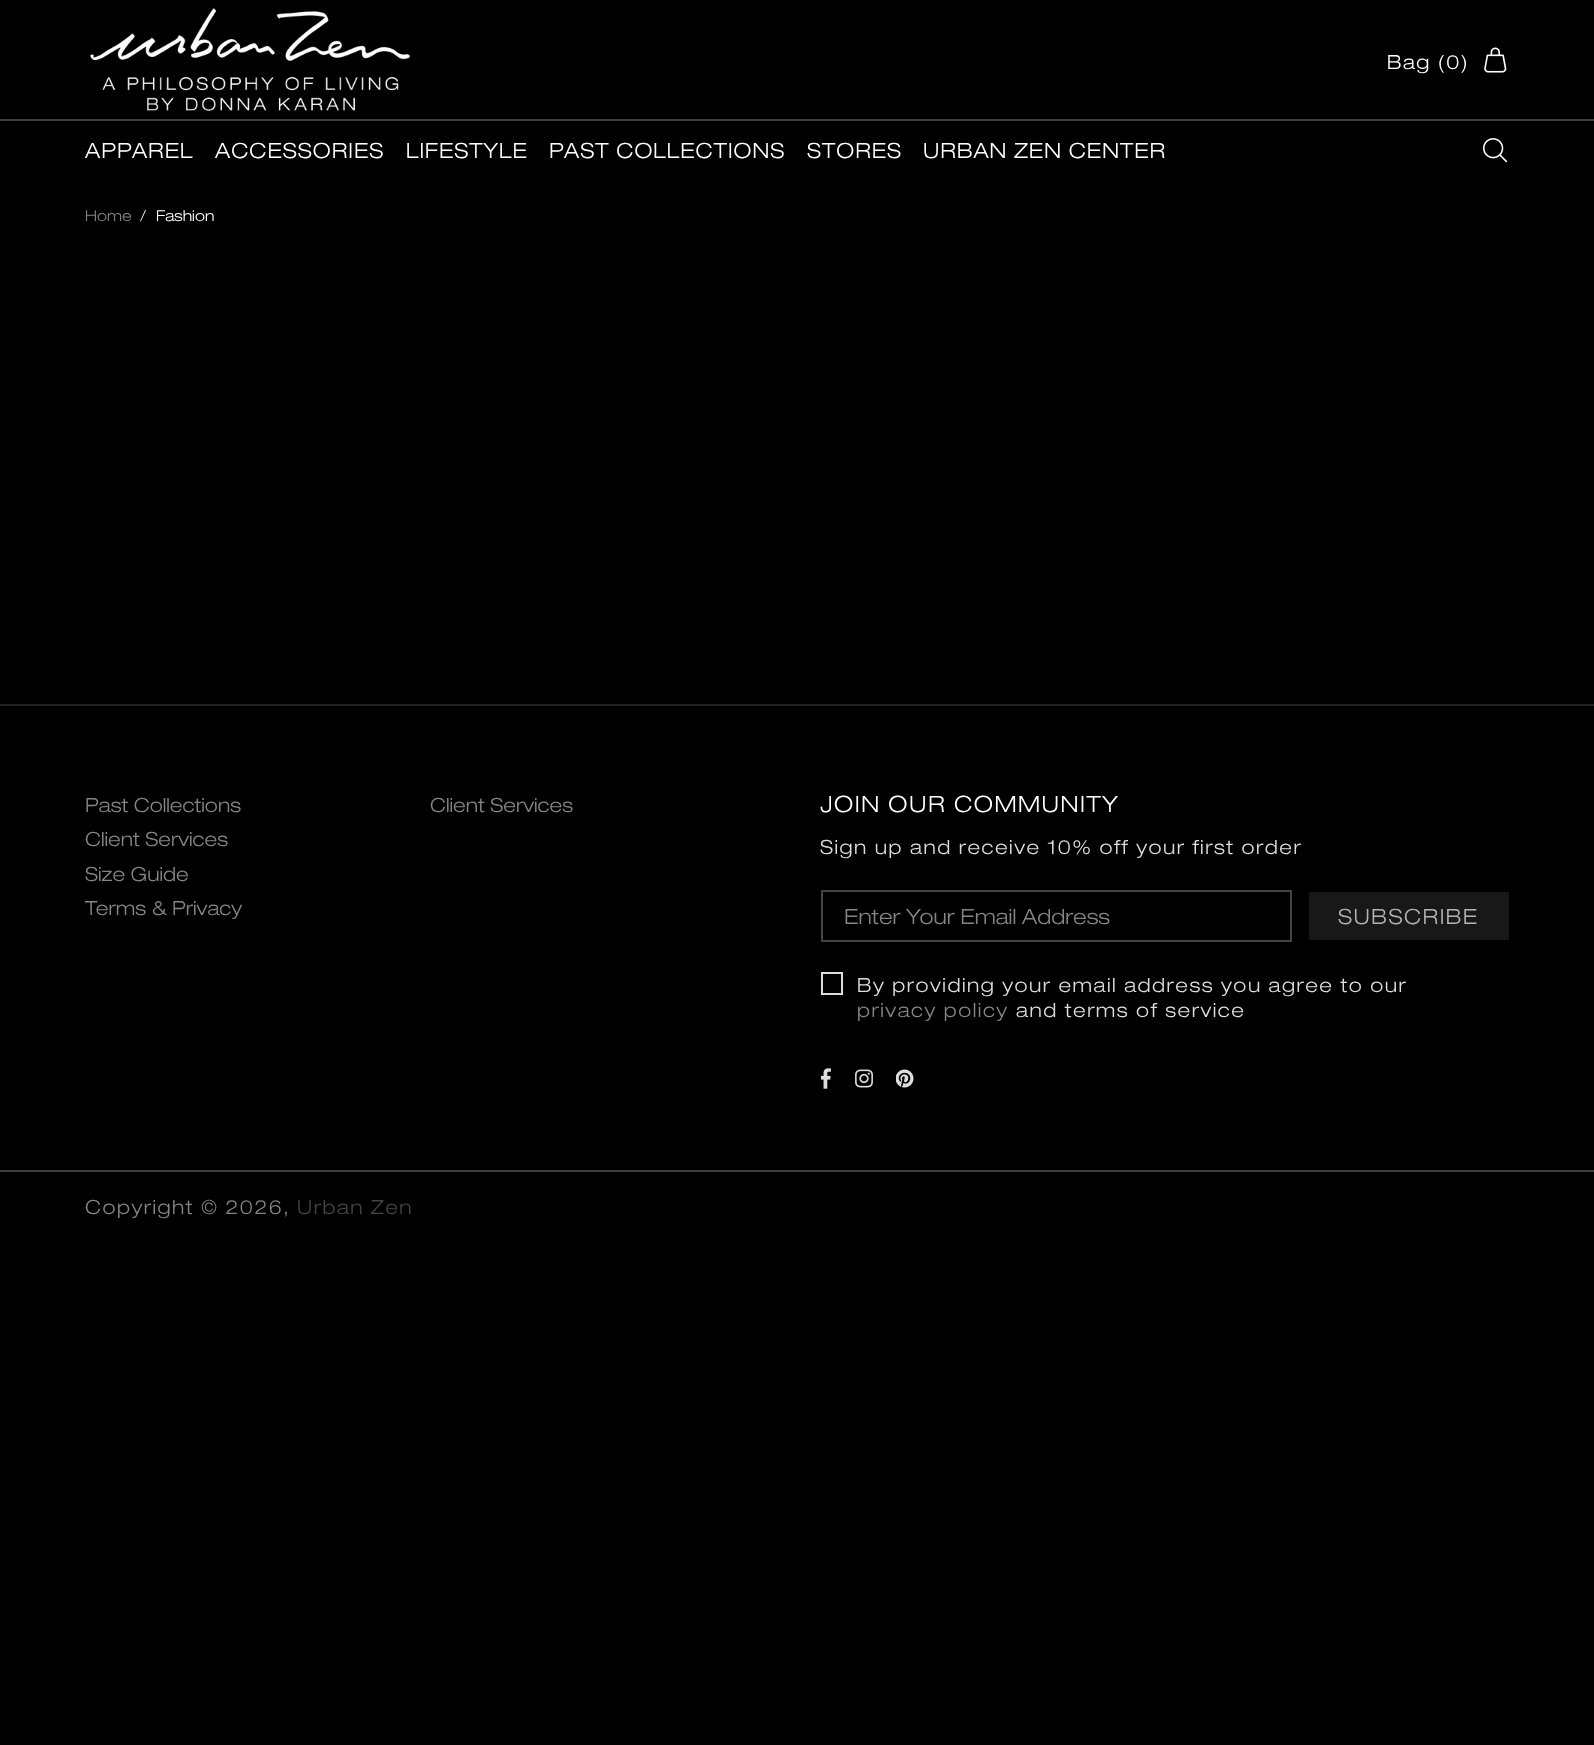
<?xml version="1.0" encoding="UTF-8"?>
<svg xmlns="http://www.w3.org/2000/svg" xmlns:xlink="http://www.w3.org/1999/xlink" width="1594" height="1745">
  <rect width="100%" height="100%" fill="#000000" />
  <rect y="119" width="1594" height="2" fill="#3e3e3e" />
  <image x="90" y="8" width="321" height="103" xlink:href="image1.png" />
  <image x="1484" y="47" width="23" height="26" xlink:href="image2.png" />
  <image x="1483" y="138" width="25" height="25" xlink:href="image3.png" />
  <rect y="704" width="1594" height="2" fill="#222222" />
  <rect x="822" y="891" width="469" height="50" fill="none" stroke="#444444" stroke-width="2" />
  <rect x="1309" y="892" width="200" height="48" fill="#181818" />
  <rect x="822" y="973" width="20" height="21" fill="none" stroke="#dddddd" stroke-width="2" />
  <image x="821" y="1068" width="10" height="21" xlink:href="image4.png" />
  <image x="855" y="1069" width="18" height="19" xlink:href="image5.png" />
  <image x="896" y="1069" width="18" height="19" xlink:href="image6.png" />
  <rect y="1170" width="1594" height="2" fill="#3e3e3e" />
  <text x="1387" y="69" style="font-family: 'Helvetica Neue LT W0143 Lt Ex'; font-size: 19.5px; font-weight: 300; letter-spacing: 1.5px; fill: #ffffff">Bag (0)</text>
  <text x="85" y="158" style="font-family: 'Helvetica Neue LT W0143 Lt Ex'; font-size: 21px; font-weight: 300; letter-spacing: 1px; fill: #ffffff">APPAREL</text>
  <text x="215" y="158" style="font-family: 'Helvetica Neue LT W0143 Lt Ex'; font-size: 21px; font-weight: 300; letter-spacing: 1px; fill: #ffffff">ACCESSORIES</text>
  <text x="406" y="158" style="font-family: 'Helvetica Neue LT W0143 Lt Ex'; font-size: 21px; font-weight: 300; letter-spacing: 1px; fill: #ffffff">LIFESTYLE</text>
  <text x="549" y="158" style="font-family: 'Helvetica Neue LT W0143 Lt Ex'; font-size: 21px; font-weight: 300; letter-spacing: 1px; fill: #ffffff">PAST COLLECTIONS</text>
  <text x="807" y="158" style="font-family: 'Helvetica Neue LT W0143 Lt Ex'; font-size: 21px; font-weight: 300; letter-spacing: 1px; fill: #ffffff">STORES</text>
  <text x="923" y="158" style="font-family: 'Helvetica Neue LT W0143 Lt Ex'; font-size: 21px; font-weight: 300; letter-spacing: 1px; fill: #ffffff">URBAN ZEN CENTER</text>
  <text x="85" y="221" style="font-family: 'Helvetica Neue LT W0143 Lt Ex'; font-size: 15px; font-weight: 300; fill: #858585">Home</text>
  <text x="140" y="221" style="font-family: 'Helvetica Neue LT W0143 Lt Ex'; font-size: 15px; font-weight: 300; fill: #ffffff">/</text>
  <text x="156" y="221" style="font-family: 'Helvetica Neue LT W0143 Lt Ex'; font-size: 15px; font-weight: 300; fill: #ffffff">Fashion</text>
  <text x="85" y="812" style="font-family: 'Helvetica Neue LT W0143 Lt Ex'; font-size: 19.5px; font-weight: 300; fill: #858585">Past Collections</text>
  <text x="85" y="846" style="font-family: 'Helvetica Neue LT W0143 Lt Ex'; font-size: 19.5px; font-weight: 300; fill: #858585">Client Services</text>
  <text x="85" y="881" style="font-family: 'Helvetica Neue LT W0143 Lt Ex'; font-size: 19.5px; font-weight: 300; fill: #858585">Size Guide</text>
  <text x="85" y="915" style="font-family: 'Helvetica Neue LT W0143 Lt Ex'; font-size: 19.5px; font-weight: 300; fill: #858585">Terms &amp; Privacy</text>
  <text x="430" y="812" style="font-family: 'Helvetica Neue LT W0143 Lt Ex'; font-size: 19.5px; font-weight: 300; fill: #858585">Client Services</text>
  <text x="820" y="812" style="font-family: 'Helvetica Neue LT W0143 Lt Ex'; font-size: 22.5px; font-weight: 300; letter-spacing: 1.5px; fill: #ffffff">JOIN OUR COMMUNITY</text>
  <text x="820" y="854" style="font-family: 'Helvetica Neue LT W0143 Lt Ex'; font-size: 19.5px; font-weight: 300; letter-spacing: 1.5px; fill: #dddddd">Sign up and receive 10% off your first order</text>
  <text x="844" y="924" style="font-family: 'Helvetica Neue LT W0143 Lt Ex'; font-size: 21px; font-weight: 300; fill: #858585">Enter Your Email Address</text>
  <text x="1338" y="924" style="font-family: 'Helvetica Neue LT W0143 Lt Ex'; font-size: 21px; font-weight: 300; letter-spacing: 1.5px; fill: #b3b3b3">SUBSCRIBE</text>
  <text x="857" y="992" style="font-family: 'Helvetica Neue LT W0143 Lt Ex'; font-size: 19.5px; font-weight: 300; letter-spacing: 1.5px; fill: #dddddd">By providing your email address you agree to our</text>
  <text x="857" y="1017" style="font-family: 'Helvetica Neue LT W0143 Lt Ex'; font-size: 19.5px; font-weight: 300; letter-spacing: 1.5px; fill: #858585">privacy policy</text>
  <text x="1016" y="1017" style="font-family: 'Helvetica Neue LT W0143 Lt Ex'; font-size: 19.5px; font-weight: 300; letter-spacing: 1.5px; fill: #dddddd">and terms of service</text>
  <text x="85" y="1214" style="font-family: 'Helvetica Neue LT W0143 Lt Ex'; font-size: 19.5px; font-weight: 300; letter-spacing: 1.5px; fill: #858585">Copyright © 2026,</text>
  <text x="297" y="1214" style="font-family: 'Helvetica Neue LT W0143 Lt Ex'; font-size: 19.5px; font-weight: 300; letter-spacing: 1.5px; fill: #444444">Urban Zen</text>
</svg>
